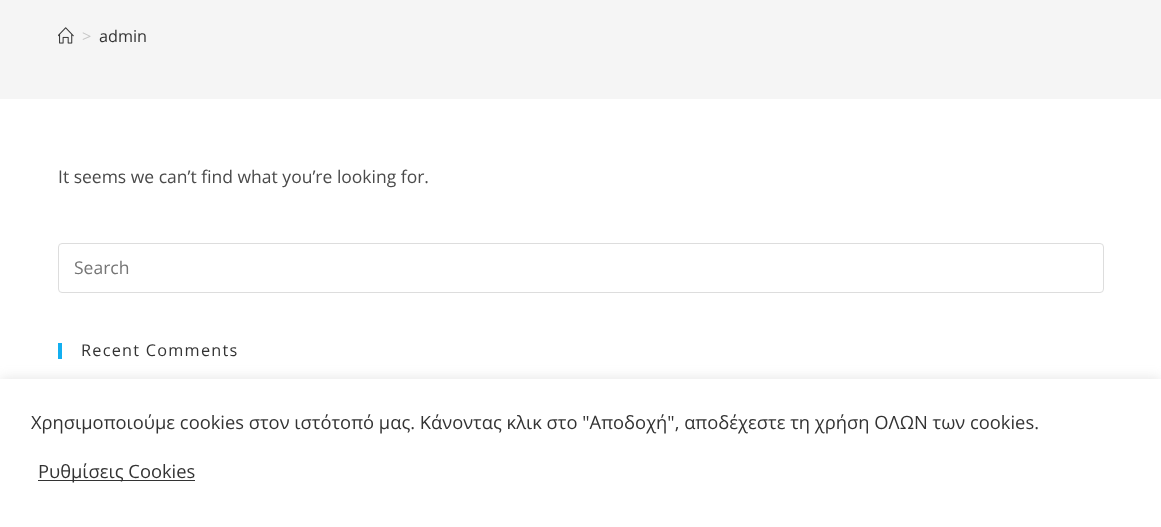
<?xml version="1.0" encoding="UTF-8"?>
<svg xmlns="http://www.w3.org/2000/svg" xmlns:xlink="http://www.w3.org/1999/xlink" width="1161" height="527">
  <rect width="100%" height="100%" fill="#ffffff" />
  <rect width="1161" height="99" fill="#f5f5f5" />
  <image x="58" y="27" width="16" height="17" xlink:href="image1.png" />
  <rect x="58.5" y="243.5" width="1045" height="49" rx="3.5" fill="none" stroke="#dddddd" />
  <rect x="58" y="343" width="4" height="16" fill="#13aff0" />
  <rect y="378" width="1161" height="148" fill="#acabab" fill-opacity="0.3" filter="blur(6px)" />
  <rect y="379" width="1161" height="148" fill="#ffffff" />
  <rect x="38" y="480" width="157" height="1" fill="#333333" />
  <text x="82" y="42" style="font-family: Open Sans; font-size: 16.25px; fill: #c6c6c6">&gt;</text>
  <text x="99" y="42" style="font-family: Open Sans; font-size: 16.25px; fill: #333333">admin</text>
  <text x="58" y="183" style="font-family: Open Sans; font-size: 17.5px; fill: #4a4a4a">It seems we can’t find what you’re looking for.</text>
  <text x="74" y="274" style="font-family: Open Sans; font-size: 17.5px; fill: #757575">Search</text>
  <text x="81" y="356" style="font-family: Open Sans; font-size: 16.25px; letter-spacing: 1.25px; fill: #333333">Recent Comments</text>
  <text x="31" y="429" style="font-family: Open Sans; font-size: 18.33px; fill: #333333">Χρησιμοποιούμε cookies στον ιστότοπό μας. Κάνοντας κλικ στο "Αποδοχή", αποδέχεστε τη χρήση ΟΛΩΝ των cookies.</text>
  <text x="38" y="478" style="font-family: Open Sans; font-size: 18.33px; fill: #333333">Ρυθμίσεις Cookies</text>
</svg>
